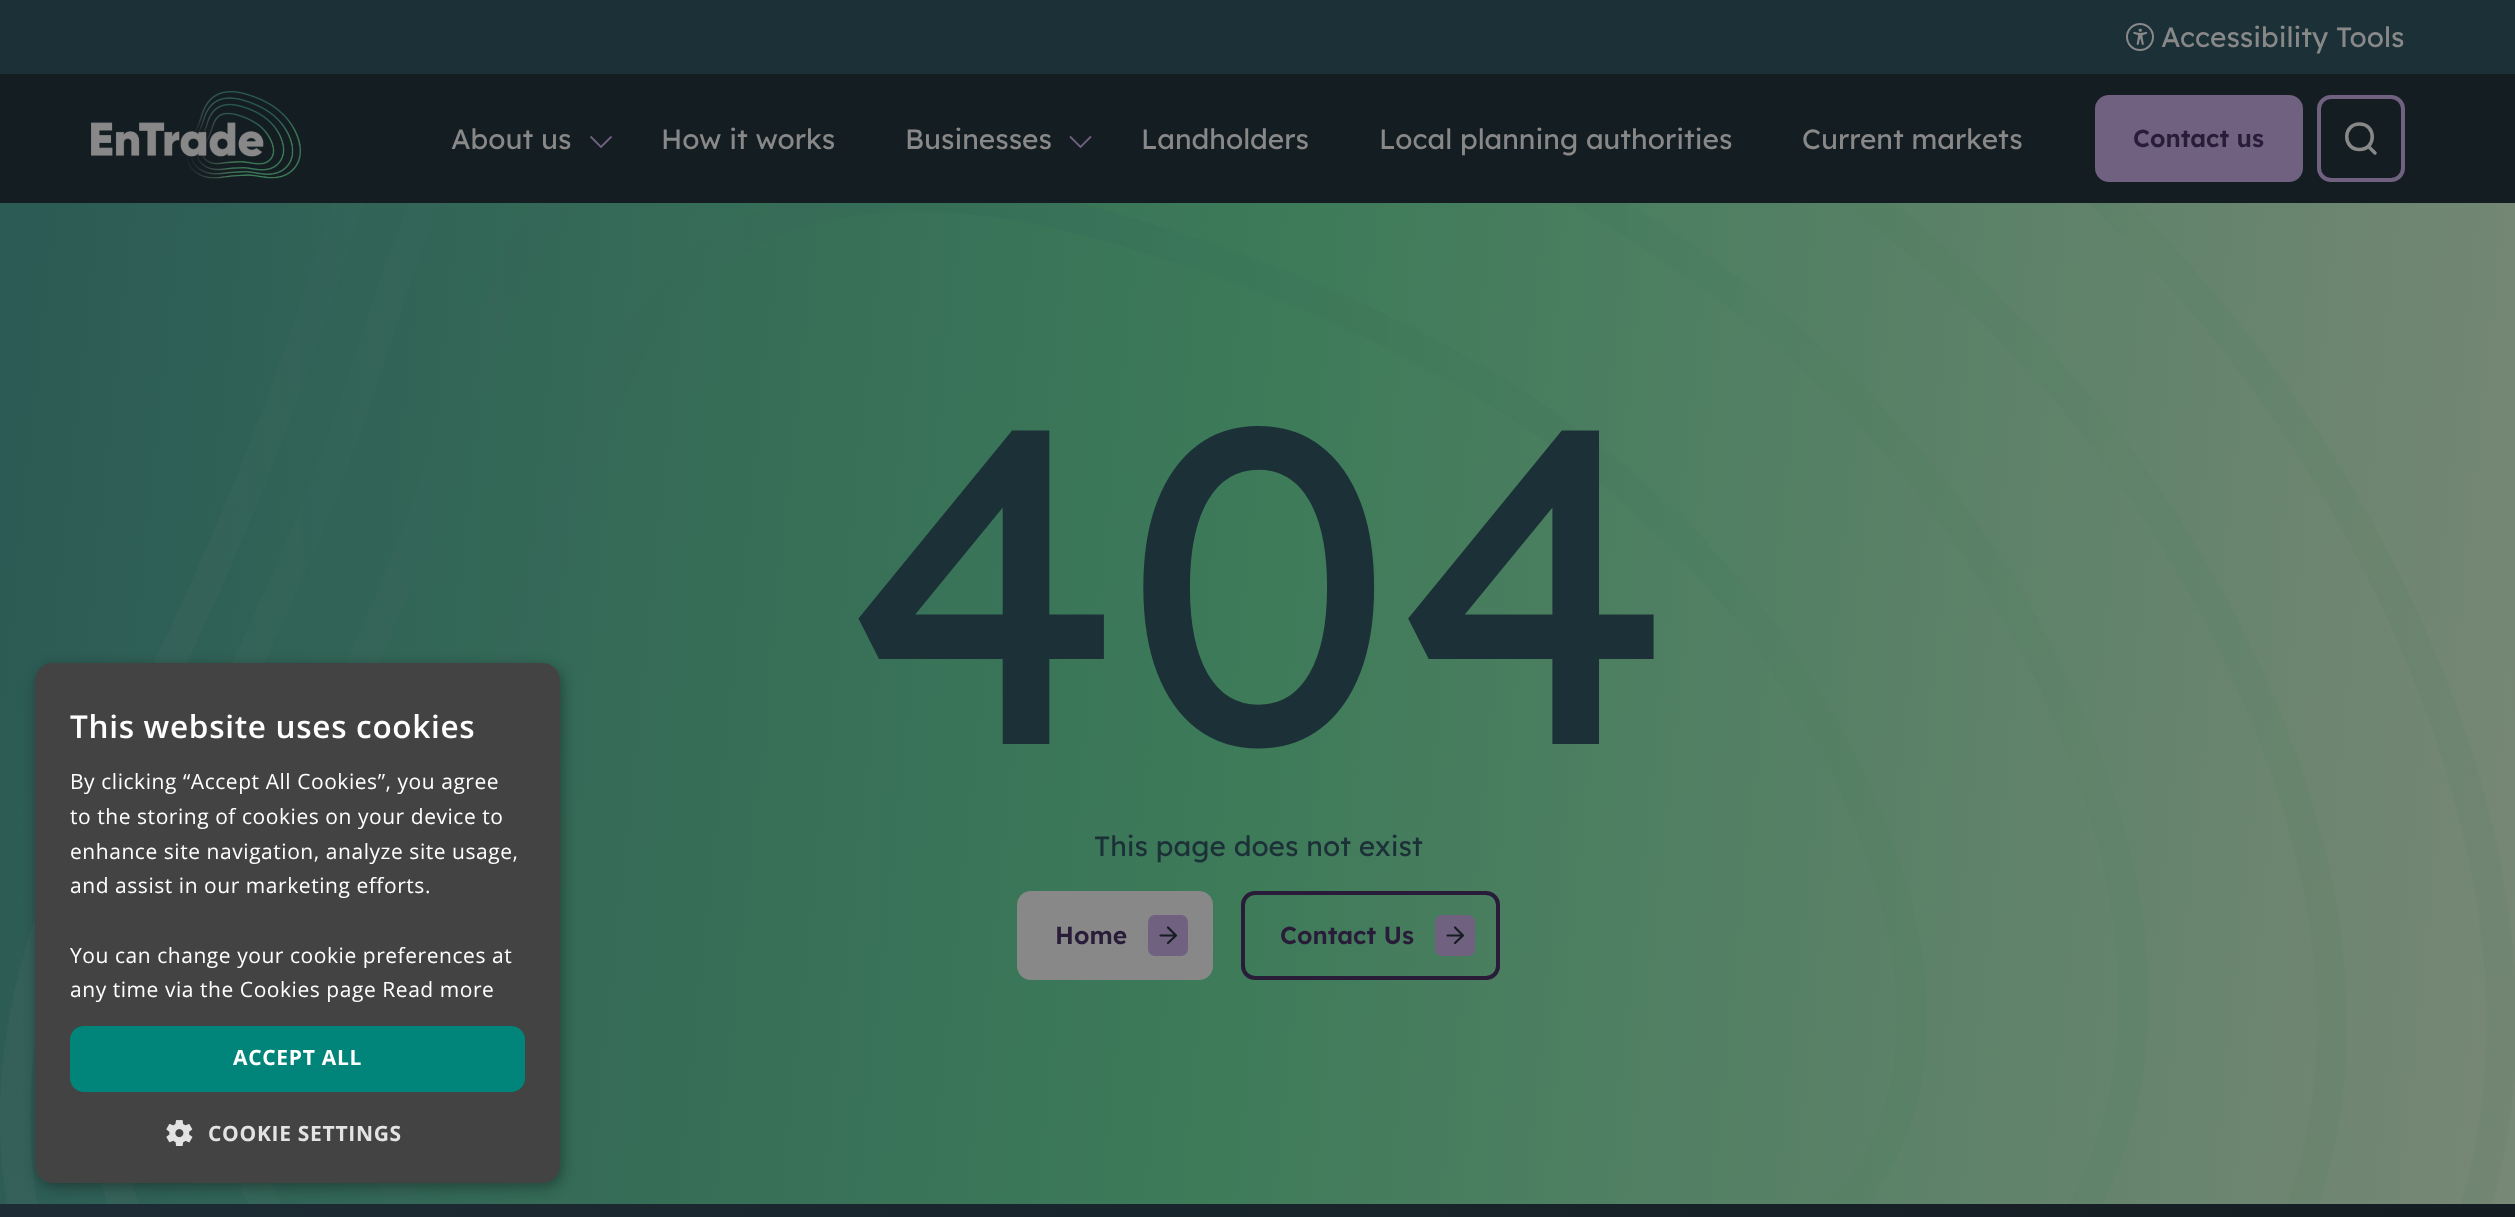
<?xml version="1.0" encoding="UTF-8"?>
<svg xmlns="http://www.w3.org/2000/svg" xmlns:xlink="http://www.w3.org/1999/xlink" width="2515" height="1217">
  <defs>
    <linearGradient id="g1" gradientUnits="userSpaceOnUse" x1="-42" y1="529" x2="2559" y2="803"><stop offset="0" stop-color="#2c5a55" /><stop offset="0.5" stop-color="#3d7b59" /><stop offset="1" stop-color="#788876" /></linearGradient>
    <linearGradient id="g2" gradientUnits="userSpaceOnUse" x1="0" y1="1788" x2="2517" y2="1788"><stop offset="0" stop-color="#1e2c35" /><stop offset="1" stop-color="#141d22" /></linearGradient>
  </defs>
  <rect width="100%" height="100%" fill="#ffffff" />
  <rect width="2515" height="74" fill="#1c3038" />
  <circle cx="2140" cy="37" r="13" fill="none" stroke="#888888" stroke-width="2" />
  <image x="2133" y="28" width="15" height="17" xlink:href="image1.png" />
  <rect y="74" width="2515" height="129" fill="#141d21" />
  <image x="91" y="91" width="210" height="88" xlink:href="image2.png" />
  <path d="M 590.5 136.5 l 10.5 10.5 l 10.5 -10.5" fill="none" stroke="#716180" stroke-width="1.8" />
  <path d="M 1070 136.5 l 10.5 10.5 l 10.5 -10.5" fill="none" stroke="#716180" stroke-width="1.8" />
  <rect x="2097" y="97" width="204" height="83" rx="12" fill="#716180" stroke="#716180" stroke-width="4" />
  <rect x="2319" y="97" width="84" height="83" rx="12" fill="none" stroke="#716180" stroke-width="4" />
  <path d="M 2359.5 149.5 c 17 0 17 -25.5 0 -25.5 c -17 0 -17 25.5 0 25.5 z m 15.5 3.5 l -6.5 -6.5" fill="none" stroke="#888888" stroke-width="3.5" stroke-linecap="round" stroke-linejoin="round" />
  <rect y="203" width="2515" height="1001" fill="url(#g1)" />
  <image x="0" y="203" width="2515" height="1001" xlink:href="image4.png" />
  <rect y="1204" width="2515" height="13" fill="url(#g2)" />
  <rect x="37" y="667" width="525" height="520" rx="18" fill="#000000" fill-opacity="0.35" filter="blur(7px)" />
  <rect x="35" y="663" width="525" height="520" rx="18" fill="#434343" />
  <rect x="70" y="1026" width="455" height="66" rx="14" fill="#01857a" />
  <image x="166" y="1120" width="27" height="26" xlink:href="image3.png" />
  <rect x="1019" y="893" width="192" height="85" rx="12" fill="#888888" stroke="#888888" stroke-width="4" />
  <rect x="1148" y="915" width="40" height="41" rx="7" fill="#716180" />
  <path d="M 1160.5 935.5 h 15.5 m -8 -8 l 8 8 l -8 7.5" fill="none" stroke="#141d21" stroke-width="2.2" stroke-linecap="round" stroke-linejoin="round" />
  <rect x="1243" y="893" width="255" height="85" rx="12" fill="none" stroke="#291c38" stroke-width="4" />
  <rect x="1435" y="915" width="40" height="41" rx="7" fill="#716180" />
  <path d="M 1447.5 935.5 h 15.5 m -8 -8 l 8 8 l -8 7.5" fill="none" stroke="#141d21" stroke-width="2.2" stroke-linecap="round" stroke-linejoin="round" />
  <text x="2161" y="47" style="font-family: Lexend; font-size: 28px; fill: #888888">Accessibility Tools</text>
  <text x="451" y="149" style="font-family: Lexend; font-size: 28px; fill: #888888">About us</text>
  <text x="661" y="149" style="font-family: Lexend; font-size: 28px; fill: #888888">How it works</text>
  <text x="905" y="149" style="font-family: Lexend; font-size: 28px; fill: #888888">Businesses</text>
  <text x="1141" y="149" style="font-family: Lexend; font-size: 28px; fill: #888888">Landholders</text>
  <text x="1379" y="149" style="font-family: Lexend; font-size: 28px; fill: #888888">Local planning authorities</text>
  <text x="1802" y="149" style="font-family: Lexend; font-size: 28px; fill: #888888">Current markets</text>
  <text x="2133" y="147" style="font-family: Lexend; font-size: 24.5px; font-weight: 600; fill: #291c38">Contact us</text>
  <text x="70" y="738" style="font-family: Open Sans; font-size: 31.5px; font-weight: 600; letter-spacing: 0.7px; fill: #ffffff">This website uses cookies</text>
  <text x="70" y="789" style="font-family: Open Sans; font-size: 21px; letter-spacing: 0.55px; fill: #ffffff">By clicking “Accept All Cookies”, you agree</text>
  <text x="70" y="824" style="font-family: Open Sans; font-size: 21px; letter-spacing: 0.55px; fill: #ffffff">to the storing of cookies on your device to</text>
  <text x="70" y="859" style="font-family: Open Sans; font-size: 21px; letter-spacing: 0.55px; fill: #ffffff">enhance site navigation, analyze site usage,</text>
  <text x="70" y="893" style="font-family: Open Sans; font-size: 21px; letter-spacing: 0.55px; fill: #ffffff">and assist in our marketing efforts.</text>
  <text x="70" y="963" style="font-family: Open Sans; font-size: 21px; letter-spacing: 0.55px; fill: #ffffff">You can change your cookie preferences at</text>
  <text x="70" y="997" style="font-family: Open Sans; font-size: 21px; letter-spacing: 0.55px; fill: #ffffff">any time via the Cookies page Read more</text>
  <text x="233" y="1065" style="font-family: Open Sans; font-size: 21px; font-weight: bold; letter-spacing: 0.7px; fill: #ffffff">ACCEPT ALL</text>
  <text x="208" y="1141" style="font-family: Open Sans; font-size: 21px; font-weight: bold; letter-spacing: 0.7px; fill: #e3e3e3">COOKIE SETTINGS</text>
  <text x="845" y="744" style="font-family: Lexend; font-size: 448px; fill: #1c3038">404</text>
  <text x="1094" y="856" style="font-family: Lexend; font-size: 28px; fill: #1c3038">This page does not exist</text>
  <text x="1055" y="944" style="font-family: Lexend; font-size: 24.5px; font-weight: 600; fill: #291c38">Home</text>
  <text x="1280" y="944" style="font-family: Lexend; font-size: 24.5px; font-weight: 600; fill: #291c38">Contact Us</text>
</svg>
